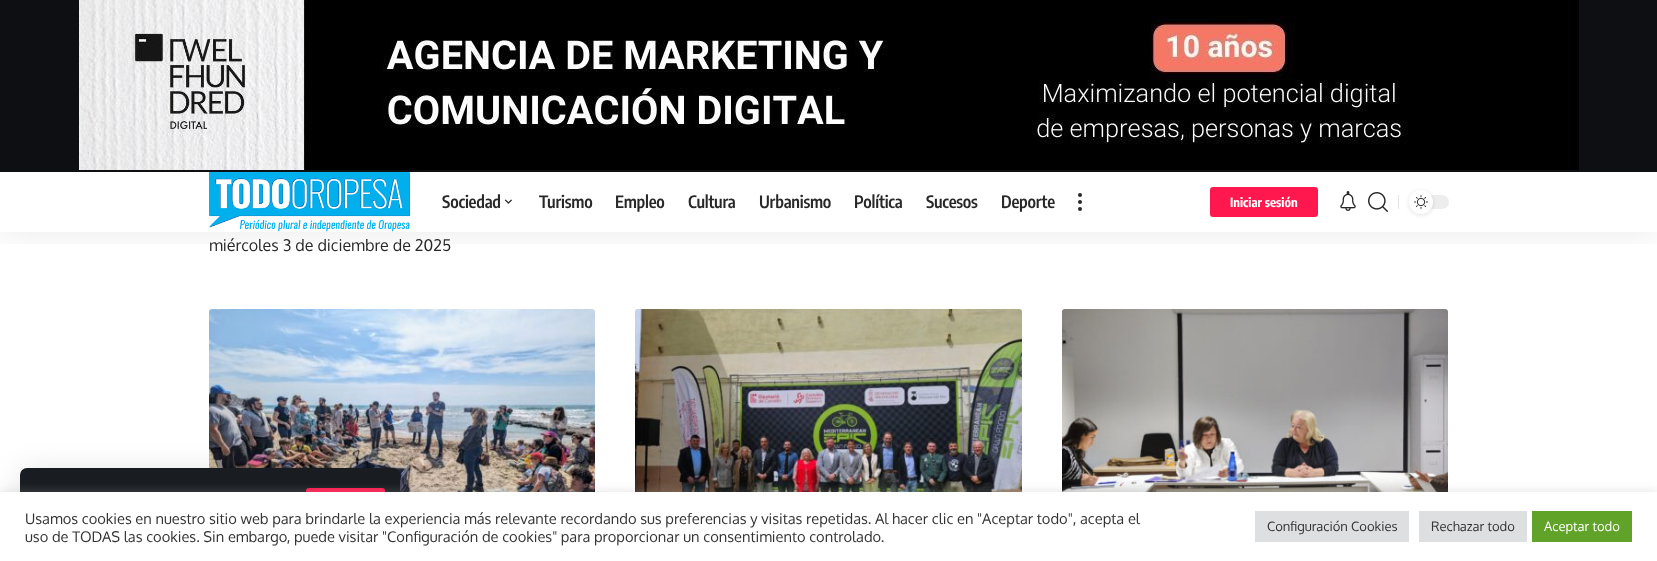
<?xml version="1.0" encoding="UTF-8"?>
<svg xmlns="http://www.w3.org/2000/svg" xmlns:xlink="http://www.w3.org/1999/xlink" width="1657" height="561">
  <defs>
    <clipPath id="clip1"><rect x="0" y="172" width="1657" height="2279" /></clipPath>
    <clipPath id="clip2"><rect x="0" y="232" width="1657" height="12" /></clipPath>
  </defs>
  <rect width="100%" height="100%" fill="#ffffff" />
  <rect width="1657" height="172" fill="#0e0f12" />
  <image x="79" y="0" width="1500" height="170" xlink:href="image1.png" />
  <g clip-path="url(#clip1)">
    <g clip-path="url(#clip2)">
      <rect y="176" width="1657" height="60" fill="#000000" fill-opacity="0.07" filter="blur(15px)" />
    </g>
  </g>
  <image x="209" y="172" width="201" height="60" xlink:href="image2.png" />
  <image x="504" y="199" width="8" height="5" xlink:href="image3.png" />
  <circle cx="1080" cy="195" r="2" fill="#282828" />
  <circle cx="1080" cy="202" r="2" fill="#282828" />
  <circle cx="1080" cy="209" r="2" fill="#282828" />
  <rect x="1210" y="187" width="108" height="30" rx="3" fill="#ff184e" />
  <image x="1340" y="191" width="16" height="20" xlink:href="image4.png" />
  <image x="1368" y="192" width="20" height="20" xlink:href="image5.png" />
  <rect x="1398" y="195" width="1" height="14" fill="#e4e4e4" />
  <rect x="1409" y="195" width="40" height="14" rx="7" fill="#ededed" />
  <rect x="1409" y="191" width="24" height="24" rx="12" fill="#000000" fill-opacity="0.12" filter="blur(2px)" />
  <circle cx="1421" cy="202" r="12" fill="#ffffff" />
  <image x="1414" y="195" width="14" height="14" xlink:href="image6.png" />
  <image x="209" y="309" width="386" height="183" xlink:href="image7.png" />
  <rect x="20" y="472" width="380" height="73" rx="7" fill="#000000" fill-opacity="0.12" filter="blur(15px)" />
  <rect x="20" y="468" width="380" height="73" rx="7" fill="#191c20" />
  <rect x="306" y="488" width="79" height="32" rx="3" fill="#ff184e" />
  <image x="635" y="309" width="387" height="183" xlink:href="image8.png" />
  <image x="1062" y="309" width="386" height="183" xlink:href="image9.png" />
  <rect y="491" width="1657" height="69" fill="#acabab" fill-opacity="0.3" filter="blur(5px)" />
  <rect y="492" width="1657" height="69" fill="#ffffff" />
  <rect x="1255" y="511" width="154" height="31" fill="#dedfe0" />
  <rect x="1419" y="511" width="108" height="31" fill="#dedfe0" />
  <rect x="1532" y="511" width="100" height="31" fill="#61a229" />
  <text x="442" y="208" style="font-family: Encode Sans Condensed; font-size: 17px; font-weight: 600; letter-spacing: -0.25px; fill: #282828">Sociedad</text>
  <text x="539" y="208" style="font-family: Encode Sans Condensed; font-size: 17px; font-weight: 600; letter-spacing: -0.25px; fill: #282828">Turismo</text>
  <text x="615" y="208" style="font-family: Encode Sans Condensed; font-size: 17px; font-weight: 600; letter-spacing: -0.25px; fill: #282828">Empleo</text>
  <text x="688" y="208" style="font-family: Encode Sans Condensed; font-size: 17px; font-weight: 600; letter-spacing: -0.25px; fill: #282828">Cultura</text>
  <text x="759" y="208" style="font-family: Encode Sans Condensed; font-size: 17px; font-weight: 600; letter-spacing: -0.25px; fill: #282828">Urbanismo</text>
  <text x="854" y="208" style="font-family: Encode Sans Condensed; font-size: 17px; font-weight: 600; letter-spacing: -0.25px; fill: #282828">Política</text>
  <text x="926" y="208" style="font-family: Encode Sans Condensed; font-size: 17px; font-weight: 600; letter-spacing: -0.25px; fill: #282828">Sucesos</text>
  <text x="1001" y="208" style="font-family: Encode Sans Condensed; font-size: 17px; font-weight: 600; letter-spacing: -0.25px; fill: #282828">Deporte</text>
  <text x="1230" y="207" style="font-family: Encode Sans Condensed; font-size: 12.75px; font-weight: bold; fill: #ffffff">Iniciar sesión</text>
  <text x="209" y="251" style="font-family: Oxygen; font-size: 16px; fill: #282828">miércoles 3 de diciembre de 2025</text>
  <text x="25" y="524" style="font-family: Oxygen; font-size: 14.67px; fill: #333333">Usamos cookies en nuestro sitio web para brindarle la experiencia más relevante recordando sus preferencias y visitas repetidas. Al hacer clic en "Aceptar todo", acepta el</text>
  <text x="25" y="542" style="font-family: Oxygen; font-size: 14.67px; fill: #333333">uso de TODAS las cookies. Sin embargo, puede visitar "Configuración de cookies" para proporcionar un consentimiento controlado.</text>
  <text x="1267" y="531" style="font-family: Oxygen; font-size: 13px; fill: #333333">Configuración Cookies</text>
  <text x="1431" y="531" style="font-family: Oxygen; font-size: 13px; fill: #333333">Rechazar todo</text>
  <text x="1544" y="531" style="font-family: Oxygen; font-size: 13px; fill: #ffffff">Aceptar todo</text>
</svg>
